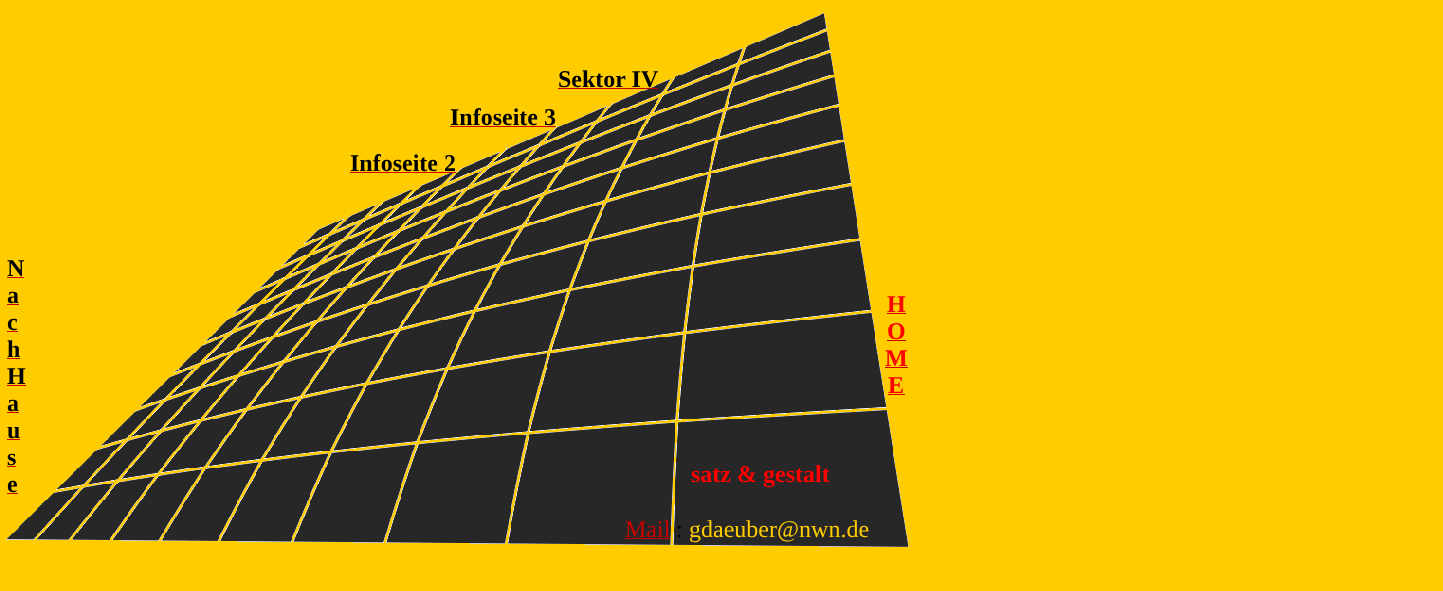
<?xml version="1.0" encoding="UTF-8"?>
<svg xmlns="http://www.w3.org/2000/svg" xmlns:xlink="http://www.w3.org/1999/xlink" width="1443" height="591">
  <rect width="100%" height="100%" fill="#ffcc00" />
  <image x="6" y="13" width="903" height="534" xlink:href="image1.png" />
  <rect x="558" y="88" width="100" height="1" fill="#cc0000" />
  <rect x="450" y="126" width="106" height="1" fill="#cc0000" />
  <rect x="350" y="172" width="106" height="1" fill="#cc0000" />
  <rect x="7" y="277" width="17" height="1" fill="#cc0000" />
  <rect x="7" y="304" width="12" height="1" fill="#cc0000" />
  <rect x="7" y="331" width="11" height="1" fill="#cc0000" />
  <rect x="7" y="358" width="13" height="1" fill="#cc0000" />
  <rect x="7" y="385" width="19" height="1" fill="#cc0000" />
  <rect x="7" y="412" width="12" height="1" fill="#cc0000" />
  <rect x="7" y="439" width="13" height="1" fill="#cc0000" />
  <rect x="7" y="466" width="9" height="1" fill="#cc0000" />
  <rect x="7" y="493" width="11" height="1" fill="#cc0000" />
  <rect x="887" y="313" width="19" height="1" fill="#cc0000" />
  <rect x="887" y="340" width="19" height="1" fill="#cc0000" />
  <rect x="885" y="367" width="23" height="1" fill="#cc0000" />
  <rect x="888" y="394" width="17" height="1" fill="#cc0000" />
  <rect x="625" y="538" width="45" height="1" fill="#cc0000" />
  <text x="558" y="87" style="font-family: Liberation Serif; font-size: 24px; font-weight: bold; fill: #000000">Sektor IV</text>
  <text x="450" y="125" style="font-family: Liberation Serif; font-size: 24px; font-weight: bold; fill: #000000">Infoseite 3</text>
  <text x="350" y="171" style="font-family: Liberation Serif; font-size: 24px; font-weight: bold; fill: #000000">Infoseite 2</text>
  <text x="7" y="276" style="font-family: Liberation Serif; font-size: 24px; font-weight: bold; fill: #000000">N</text>
  <text x="7" y="303" style="font-family: Liberation Serif; font-size: 24px; font-weight: bold; fill: #000000">a</text>
  <text x="7" y="330" style="font-family: Liberation Serif; font-size: 24px; font-weight: bold; fill: #000000">c</text>
  <text x="7" y="357" style="font-family: Liberation Serif; font-size: 24px; font-weight: bold; fill: #000000">h</text>
  <text x="7" y="384" style="font-family: Liberation Serif; font-size: 24px; font-weight: bold; fill: #000000">H</text>
  <text x="7" y="411" style="font-family: Liberation Serif; font-size: 24px; font-weight: bold; fill: #000000">a</text>
  <text x="7" y="438" style="font-family: Liberation Serif; font-size: 24px; font-weight: bold; fill: #000000">u</text>
  <text x="7" y="465" style="font-family: Liberation Serif; font-size: 24px; font-weight: bold; fill: #000000">s</text>
  <text x="7" y="492" style="font-family: Liberation Serif; font-size: 24px; font-weight: bold; fill: #000000">e</text>
  <text x="887" y="312" style="font-family: Liberation Serif; font-size: 24px; font-weight: bold; fill: #ff0000">H</text>
  <text x="887" y="339" style="font-family: Liberation Serif; font-size: 24px; font-weight: bold; fill: #ff0000">O</text>
  <text x="885" y="366" style="font-family: Liberation Serif; font-size: 24px; font-weight: bold; fill: #ff0000">M</text>
  <text x="888" y="393" style="font-family: Liberation Serif; font-size: 24px; font-weight: bold; fill: #ff0000">E</text>
  <text x="691" y="482" style="font-family: Liberation Serif; font-size: 24px; font-weight: bold; fill: #ff0000">satz &amp; gestalt</text>
  <text x="625" y="537" style="font-family: Liberation Serif; font-size: 24px; fill: #cc0000">Mail</text>
  <text x="676" y="537" style="font-family: Liberation Serif; font-size: 24px; fill: #000000">:</text>
  <text x="689" y="537" style="font-family: Liberation Serif; font-size: 24px; fill: #ffcc00">gdaeuber@nwn.de</text>
</svg>
